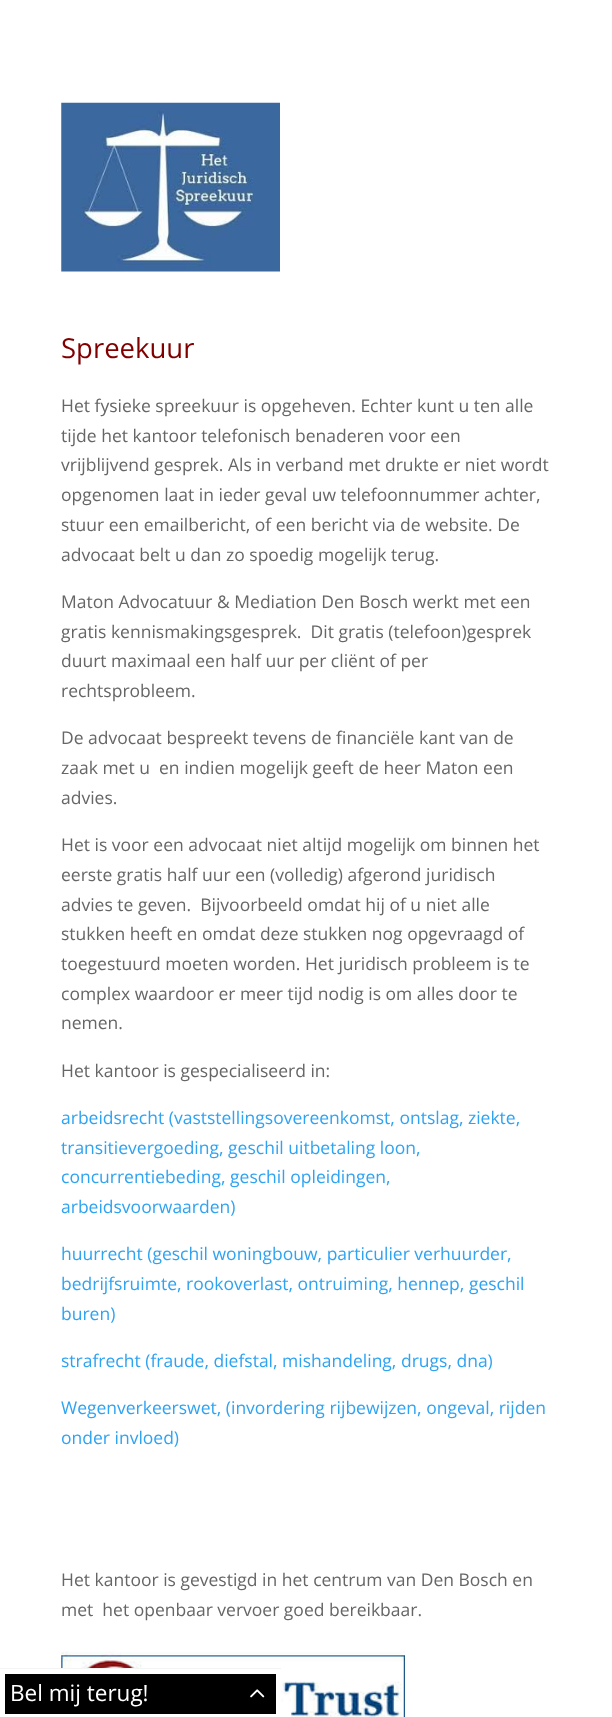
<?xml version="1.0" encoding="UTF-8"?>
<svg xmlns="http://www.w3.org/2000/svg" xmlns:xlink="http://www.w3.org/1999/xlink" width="612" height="1717">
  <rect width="100%" height="100%" fill="#ffffff" />
  <image x="61" y="102" width="219" height="170" xlink:href="image1.png" />
  <image x="61" y="1651" width="344" height="66" xlink:href="image2.png" />
  <rect x="61" y="1669" width="211" height="48" fill="#ffffff" />
  <rect y="1668" width="281" height="1" fill="#f4f4f4" />
  <rect x="5" y="1674" width="271" height="40" fill="#000000" />
  <image x="250" y="1689" width="15" height="9" xlink:href="image3.png" />
  <text x="61" y="358" style="font-family: Open Sans; font-size: 27.5px; fill: #800000">Spreekuur</text>
  <text x="61" y="412" style="font-family: Open Sans; font-size: 17.5px; fill: #666666">Het fysieke spreekuur is opgeheven. Echter kunt u ten alle</text>
  <text x="61" y="442" style="font-family: Open Sans; font-size: 17.5px; fill: #666666">tijde het kantoor telefonisch benaderen voor een</text>
  <text x="61" y="471" style="font-family: Open Sans; font-size: 17.5px; fill: #666666">vrijblijvend gesprek. Als in verband met drukte er niet wordt</text>
  <text x="61" y="501" style="font-family: Open Sans; font-size: 17.5px; fill: #666666">opgenomen laat in ieder geval uw telefoonnummer achter,</text>
  <text x="61" y="531" style="font-family: Open Sans; font-size: 17.5px; fill: #666666">stuur een emailbericht, of een bericht via de website. De</text>
  <text x="61" y="561" style="font-family: Open Sans; font-size: 17.5px; fill: #666666">advocaat belt u dan zo spoedig mogelijk terug.</text>
  <text x="61" y="608" style="font-family: Open Sans; font-size: 17.5px; fill: #666666">Maton Advocatuur &amp; Mediation Den Bosch werkt met een</text>
  <text x="61" y="638" style="font-family: Open Sans; font-size: 17.5px; fill: #666666" xml:space="preserve">gratis kennismakingsgesprek.  Dit gratis (telefoon)gesprek</text>
  <text x="61" y="667" style="font-family: Open Sans; font-size: 17.5px; fill: #666666">duurt maximaal een half uur per cliënt of per</text>
  <text x="61" y="697" style="font-family: Open Sans; font-size: 17.5px; fill: #666666">rechtsprobleem.</text>
  <text x="61" y="744" style="font-family: Open Sans; font-size: 17.5px; fill: #666666">De advocaat bespreekt tevens de financiële kant van de</text>
  <text x="61" y="774" style="font-family: Open Sans; font-size: 17.5px; fill: #666666" xml:space="preserve">zaak met u  en indien mogelijk geeft de heer Maton een</text>
  <text x="61" y="804" style="font-family: Open Sans; font-size: 17.5px; fill: #666666">advies.</text>
  <text x="61" y="851" style="font-family: Open Sans; font-size: 17.5px; fill: #666666">Het is voor een advocaat niet altijd mogelijk om binnen het</text>
  <text x="61" y="881" style="font-family: Open Sans; font-size: 17.5px; fill: #666666">eerste gratis half uur een (volledig) afgerond juridisch</text>
  <text x="61" y="911" style="font-family: Open Sans; font-size: 17.5px; fill: #666666" xml:space="preserve">advies te geven.  Bijvoorbeeld omdat hij of u niet alle</text>
  <text x="61" y="940" style="font-family: Open Sans; font-size: 17.5px; fill: #666666">stukken heeft en omdat deze stukken nog opgevraagd of</text>
  <text x="61" y="970" style="font-family: Open Sans; font-size: 17.5px; fill: #666666">toegestuurd moeten worden. Het juridisch probleem is te</text>
  <text x="61" y="1000" style="font-family: Open Sans; font-size: 17.5px; fill: #666666">complex waardoor er meer tijd nodig is om alles door te</text>
  <text x="61" y="1029" style="font-family: Open Sans; font-size: 17.5px; fill: #666666">nemen.</text>
  <text x="61" y="1077" style="font-family: Open Sans; font-size: 17.5px; fill: #666666">Het kantoor is gespecialiseerd in:</text>
  <text x="61" y="1124" style="font-family: Open Sans; font-size: 17.5px; fill: #2ea3f2">arbeidsrecht (vaststellingsovereenkomst, ontslag, ziekte,</text>
  <text x="61" y="1154" style="font-family: Open Sans; font-size: 17.5px; fill: #2ea3f2">transitievergoeding, geschil uitbetaling loon,</text>
  <text x="61" y="1183" style="font-family: Open Sans; font-size: 17.5px; fill: #2ea3f2">concurrentiebeding, geschil opleidingen,</text>
  <text x="61" y="1213" style="font-family: Open Sans; font-size: 17.5px; fill: #2ea3f2">arbeidsvoorwaarden)</text>
  <text x="61" y="1260" style="font-family: Open Sans; font-size: 17.5px; fill: #2ea3f2">huurrecht (geschil woningbouw, particulier verhuurder,</text>
  <text x="61" y="1290" style="font-family: Open Sans; font-size: 17.5px; fill: #2ea3f2">bedrijfsruimte, rookoverlast, ontruiming, hennep, geschil</text>
  <text x="61" y="1320" style="font-family: Open Sans; font-size: 17.5px; fill: #2ea3f2">buren)</text>
  <text x="61" y="1367" style="font-family: Open Sans; font-size: 17.5px; fill: #2ea3f2">strafrecht (fraude, diefstal, mishandeling, drugs, dna)</text>
  <text x="61" y="1414" style="font-family: Open Sans; font-size: 17.5px; fill: #2ea3f2">Wegenverkeerswet, (invordering rijbewijzen, ongeval, rijden</text>
  <text x="61" y="1444" style="font-family: Open Sans; font-size: 17.5px; fill: #2ea3f2">onder invloed)</text>
  <text x="61" y="1586" style="font-family: Open Sans; font-size: 17.5px; fill: #666666">Het kantoor is gevestigd in het centrum van Den Bosch en</text>
  <text x="61" y="1616" style="font-family: Open Sans; font-size: 17.5px; fill: #666666" xml:space="preserve">met  het openbaar vervoer goed bereikbaar.</text>
  <text x="10" y="1701" style="font-family: Open Sans; font-size: 22.5px; fill: #ffffff">Bel mij terug!</text>
</svg>
